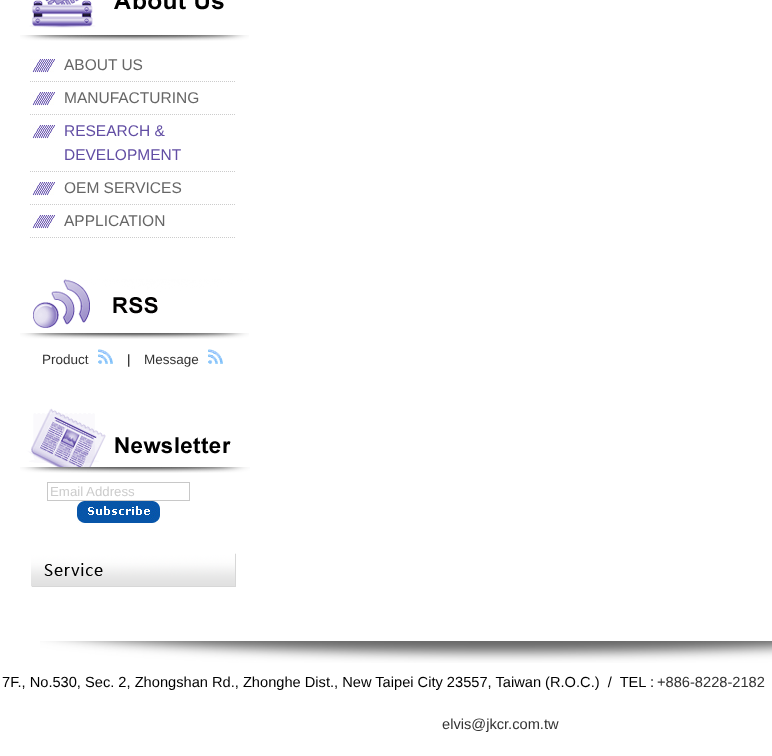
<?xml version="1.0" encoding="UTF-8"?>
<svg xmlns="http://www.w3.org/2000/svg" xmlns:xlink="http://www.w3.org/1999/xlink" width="772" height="756">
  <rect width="100%" height="100%" fill="#ffffff" />
  <image x="20" y="0" width="229" height="41" xlink:href="image1.png" />
  <image x="30" y="59" width="25" height="14" xlink:href="image2.png" />
  <path d="M 30 81.5 h 206" fill="none" stroke="#cccccc" stroke-dasharray="1 1" />
  <image x="30" y="92" width="25" height="14" xlink:href="image2.png" />
  <path d="M 30 114.5 h 206" fill="none" stroke="#cccccc" stroke-dasharray="1 1" />
  <image x="30" y="125" width="25" height="14" xlink:href="image2.png" />
  <path d="M 30 171.5 h 206" fill="none" stroke="#cccccc" stroke-dasharray="1 1" />
  <image x="30" y="182" width="25" height="14" xlink:href="image2.png" />
  <path d="M 30 204.5 h 206" fill="none" stroke="#cccccc" stroke-dasharray="1 1" />
  <image x="30" y="215" width="25" height="14" xlink:href="image2.png" />
  <path d="M 30 237.5 h 206" fill="none" stroke="#cccccc" stroke-dasharray="1 1" />
  <image x="20" y="279" width="229" height="60" xlink:href="image3.png" />
  <image x="98" y="349" width="15" height="15" xlink:href="image4.png" />
  <image x="208" y="349" width="15" height="15" xlink:href="image4.png" />
  <image x="20" y="408" width="230" height="65" xlink:href="image5.png" />
  <rect x="47.5" y="482.5" width="142" height="18" fill="none" stroke="#c8c8c8" />
  <image x="77" y="501" width="83" height="22" xlink:href="image6.png" />
  <image x="31" y="553" width="205" height="34" xlink:href="image7.png" />
  <image x="40" y="641" width="732" height="22" xlink:href="image8.png" />
  <text x="64" y="70" style="font-family: Liberation Sans; font-size: 15.5px; fill: #666666">ABOUT US</text>
  <text x="64" y="103" style="font-family: Liberation Sans; font-size: 15.5px; fill: #666666">MANUFACTURING</text>
  <text x="64" y="136" style="font-family: Liberation Sans; font-size: 15.5px; fill: #624ea4">RESEARCH &amp;</text>
  <text x="64" y="160" style="font-family: Liberation Sans; font-size: 15.5px; fill: #624ea4">DEVELOPMENT</text>
  <text x="64" y="193" style="font-family: Liberation Sans; font-size: 15.5px; fill: #666666">OEM SERVICES</text>
  <text x="64" y="226" style="font-family: Liberation Sans; font-size: 15.5px; fill: #666666">APPLICATION</text>
  <text x="42" y="364" style="font-family: Liberation Sans; font-size: 13.5px; fill: #333333">Product</text>
  <text x="127" y="364" style="font-family: Liberation Sans; font-size: 13.5px; fill: #000000">|</text>
  <text x="144" y="364" style="font-family: Liberation Sans; font-size: 13.5px; fill: #333333">Message</text>
  <text x="50" y="496" style="font-family: Liberation Sans; font-size: 13.25px; fill: #cccccc">Email Address</text>
  <text x="2" y="687" style="font-family: Liberation Sans; font-size: 14.65px; fill: #000000" xml:space="preserve">7F., No.530, Sec. 2, Zhongshan Rd., Zhonghe Dist., New Taipei City 23557, Taiwan (R.O.C.)  /  TEL :</text>
  <text x="657" y="687" style="font-family: Liberation Sans; font-size: 14.65px; fill: #333333">+886-8228-2182</text>
  <text x="442" y="729" style="font-family: Liberation Sans; font-size: 14.65px; fill: #333333">elvis@jkcr.com.tw</text>
</svg>
